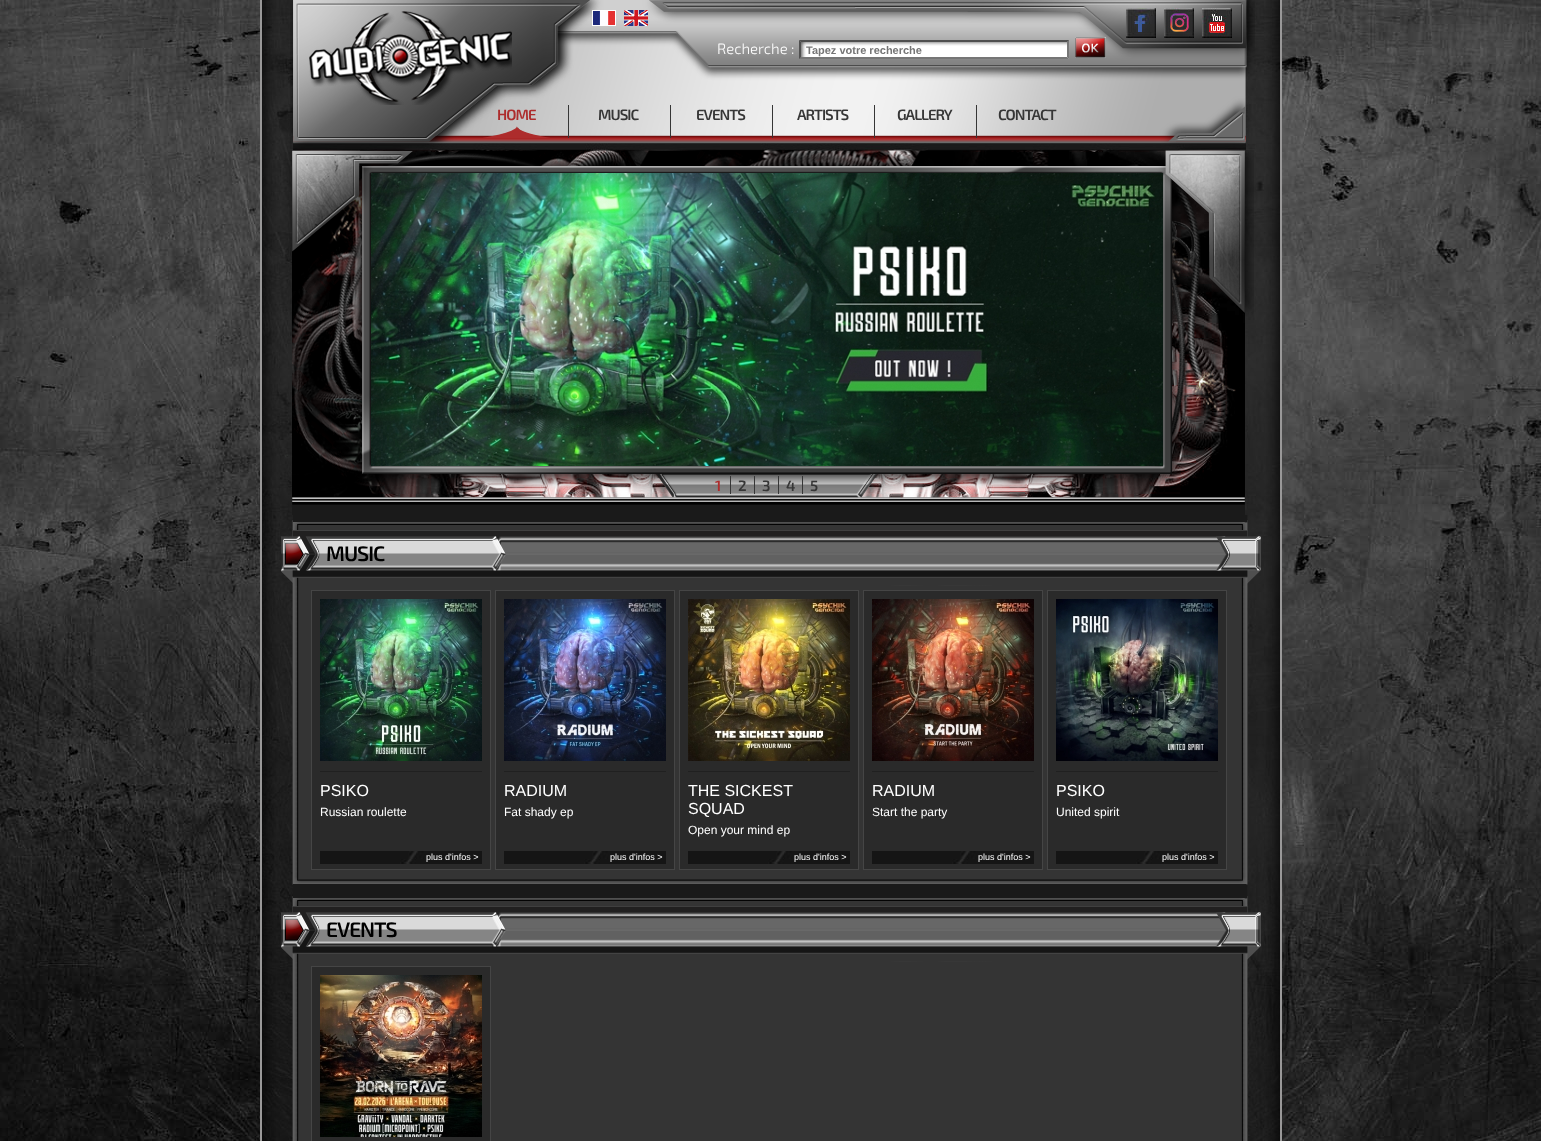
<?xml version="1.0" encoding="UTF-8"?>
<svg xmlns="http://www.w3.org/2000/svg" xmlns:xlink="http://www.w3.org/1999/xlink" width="1541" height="1141">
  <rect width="100%" height="100%" fill="#ffffff" />
  <image x="0" y="0" width="1541" height="1141" xlink:href="image1.png" />
  <image x="260" y="0" width="1022" height="1141" xlink:href="image2.png" />
  <image x="290" y="0" width="965" height="150" xlink:href="image3.png" />
  <image x="309" y="11" width="203" height="94" xlink:href="image4.png" />
  <image x="309" y="11" width="203" height="94" xlink:href="image5.png" />
  <image x="592" y="10" width="24" height="16" xlink:href="image6.png" />
  <image x="624" y="10" width="24" height="16" xlink:href="image7.png" />
  <image x="801" y="40" width="268" height="19" xlink:href="image8.png" />
  <path d="M 799 40 h 270 l -2 2 h -266 z" fill="#4f4f4f" />
  <path d="M 1069 40 v 19 l -2 -2 v -15 z" fill="#767676" />
  <path d="M 1069 59 h -270 l 2 -2 h 266 z" fill="#767676" />
  <path d="M 799 59 v -19 l 2 2 v 15 z" fill="#4f4f4f" />
  <image x="1075" y="37" width="31" height="21" xlink:href="image9.png" />
  <image x="1126" y="8" width="30" height="30" xlink:href="image10.png" />
  <image x="1164" y="8" width="30" height="30" xlink:href="image11.png" />
  <image x="1202" y="8" width="30" height="30" xlink:href="image12.png" />
  <image x="483" y="126" width="67" height="12" xlink:href="image13.png" />
  <rect x="568" y="105" width="1" height="33" fill="#363636" />
  <rect x="670" y="105" width="1" height="33" fill="#363636" />
  <rect x="772" y="105" width="1" height="33" fill="#363636" />
  <rect x="874" y="105" width="1" height="33" fill="#363636" />
  <rect x="976" y="105" width="1" height="33" fill="#363636" />
  <image x="285" y="150" width="969" height="365" xlink:href="image14.png" />
  <rect x="371" y="175" width="792" height="293" fill="#000000" fill-opacity="0.26" filter="blur(2.5px)" />
  <image x="371" y="173" width="792" height="293" xlink:href="image15.png" />
  <rect x="730" y="476" width="1" height="18" fill="#363636" />
  <rect x="754" y="476" width="1" height="18" fill="#363636" />
  <rect x="778" y="476" width="1" height="18" fill="#363636" />
  <rect x="802" y="476" width="1" height="18" fill="#363636" />
  <image x="281" y="515" width="980" height="71" xlink:href="image16.png" />
  <image x="292" y="586" width="956" height="288" xlink:href="image17.png" />
  <rect x="311.5" y="590.5" width="179" height="279" fill="#2a2a2a" stroke="#454545" />
  <rect x="320" y="771" width="162" height="1" fill="#202020" />
  <image x="320" y="599" width="162" height="162" xlink:href="image18.png" />
  <image x="320" y="851" width="162" height="13" xlink:href="image19.png" />
  <rect x="495.5" y="590.5" width="179" height="279" fill="#2a2a2a" stroke="#454545" />
  <rect x="504" y="771" width="162" height="1" fill="#202020" />
  <image x="504" y="599" width="162" height="162" xlink:href="image20.png" />
  <image x="504" y="851" width="162" height="13" xlink:href="image19.png" />
  <rect x="679.5" y="590.5" width="179" height="279" fill="#2a2a2a" stroke="#454545" />
  <rect x="688" y="771" width="162" height="1" fill="#202020" />
  <image x="688" y="599" width="162" height="162" xlink:href="image21.png" />
  <image x="688" y="851" width="162" height="13" xlink:href="image19.png" />
  <rect x="863.5" y="590.5" width="179" height="279" fill="#2a2a2a" stroke="#454545" />
  <rect x="872" y="771" width="162" height="1" fill="#202020" />
  <image x="872" y="599" width="162" height="162" xlink:href="image22.png" />
  <image x="872" y="851" width="162" height="13" xlink:href="image19.png" />
  <rect x="1047.5" y="590.5" width="179" height="279" fill="#2a2a2a" stroke="#454545" />
  <rect x="1056" y="771" width="162" height="1" fill="#202020" />
  <image x="1056" y="599" width="162" height="162" xlink:href="image23.png" />
  <image x="1056" y="851" width="162" height="13" xlink:href="image19.png" />
  <image x="292" y="874" width="956" height="17" xlink:href="image24.png" />
  <image x="281" y="891" width="980" height="71" xlink:href="image25.png" />
  <image x="292" y="962" width="956" height="179" xlink:href="image26.png" />
  <rect x="311.5" y="966.5" width="179" height="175" fill="#2a2a2a" stroke="#454545" />
  <image x="320" y="975" width="162" height="162" xlink:href="image27.png" />
  <text x="717" y="54" style="font-family: 'Exo 2'; font-size: 15px; font-weight: 300; fill: #ffffff">Recherche :</text>
  <text x="806" y="54" style="font-family: Liberation Sans; font-size: 11px; font-weight: bold; fill: #757575">Tapez votre recherche</text>
  <text x="497" y="120" style="font-family: 'Exo 2'; font-size: 15px; font-weight: 600; letter-spacing: -1px; fill: #ad2c2c">HOME</text>
  <text x="598" y="120" style="font-family: 'Exo 2'; font-size: 15px; font-weight: 600; letter-spacing: -1px; fill: #363636">MUSIC</text>
  <text x="696" y="120" style="font-family: 'Exo 2'; font-size: 15px; font-weight: 600; letter-spacing: -1px; fill: #363636">EVENTS</text>
  <text x="797" y="120" style="font-family: 'Exo 2'; font-size: 15px; font-weight: 600; letter-spacing: -1px; fill: #363636">ARTISTS</text>
  <text x="897" y="120" style="font-family: 'Exo 2'; font-size: 15px; font-weight: 600; letter-spacing: -1px; fill: #363636">GALLERY</text>
  <text x="998" y="120" style="font-family: 'Exo 2'; font-size: 15px; font-weight: 600; letter-spacing: -1px; fill: #363636">CONTACT</text>
  <text x="715" y="491" style="font-family: 'Exo 2'; font-size: 15px; font-weight: 600; fill: #ad2c2c">1</text>
  <text x="738" y="491" style="font-family: 'Exo 2'; font-size: 15px; font-weight: 600; fill: #363636">2</text>
  <text x="762" y="491" style="font-family: 'Exo 2'; font-size: 15px; font-weight: 600; fill: #363636">3</text>
  <text x="786" y="491" style="font-family: 'Exo 2'; font-size: 15px; font-weight: 600; fill: #363636">4</text>
  <text x="810" y="491" style="font-family: 'Exo 2'; font-size: 15px; font-weight: 600; fill: #363636">5</text>
  <text x="326" y="561" style="font-family: 'Exo 2'; font-size: 21px; font-weight: 600; letter-spacing: -1px; fill: #000000">MUSIC</text>
  <text x="320" y="796" style="font-family: Liberation Sans; font-size: 16px; fill: #ffffff">PSIKO</text>
  <text x="320" y="816" style="font-family: Liberation Sans; font-size: 12px; fill: #ffffff">Russian roulette</text>
  <text x="426" y="860" style="font-family: Liberation Sans; font-size: 9px; fill: #ffffff">plus d'infos &gt;</text>
  <text x="504" y="796" style="font-family: Liberation Sans; font-size: 16px; fill: #ffffff">RADIUM</text>
  <text x="504" y="816" style="font-family: Liberation Sans; font-size: 12px; fill: #ffffff">Fat shady ep</text>
  <text x="610" y="860" style="font-family: Liberation Sans; font-size: 9px; fill: #ffffff">plus d'infos &gt;</text>
  <text x="688" y="796" style="font-family: Liberation Sans; font-size: 16px; fill: #ffffff">THE SICKEST</text>
  <text x="688" y="814" style="font-family: Liberation Sans; font-size: 16px; fill: #ffffff">SQUAD</text>
  <text x="688" y="834" style="font-family: Liberation Sans; font-size: 12px; fill: #ffffff">Open your mind ep</text>
  <text x="794" y="860" style="font-family: Liberation Sans; font-size: 9px; fill: #ffffff">plus d'infos &gt;</text>
  <text x="872" y="796" style="font-family: Liberation Sans; font-size: 16px; fill: #ffffff">RADIUM</text>
  <text x="872" y="816" style="font-family: Liberation Sans; font-size: 12px; fill: #ffffff">Start the party</text>
  <text x="978" y="860" style="font-family: Liberation Sans; font-size: 9px; fill: #ffffff">plus d'infos &gt;</text>
  <text x="1056" y="796" style="font-family: Liberation Sans; font-size: 16px; fill: #ffffff">PSIKO</text>
  <text x="1056" y="816" style="font-family: Liberation Sans; font-size: 12px; fill: #ffffff">United spirit</text>
  <text x="1162" y="860" style="font-family: Liberation Sans; font-size: 9px; fill: #ffffff">plus d'infos &gt;</text>
  <text x="326" y="937" style="font-family: 'Exo 2'; font-size: 21px; font-weight: 600; letter-spacing: -1px; fill: #000000">EVENTS</text>
</svg>
